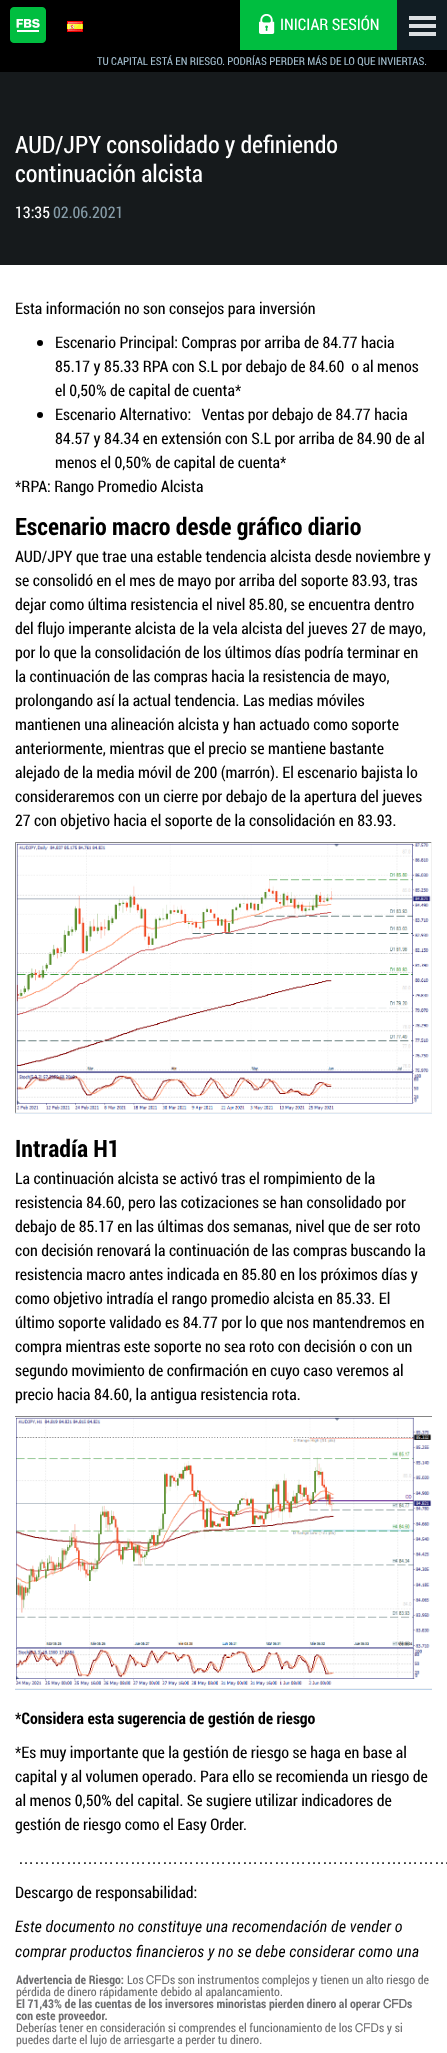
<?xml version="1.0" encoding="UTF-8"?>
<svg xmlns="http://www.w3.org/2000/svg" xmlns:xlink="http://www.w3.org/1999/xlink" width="447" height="2053">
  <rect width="100%" height="100%" fill="#161a1c" />
  <rect width="240" height="50" fill="#000000" />
  <image x="10" y="7" width="36" height="36" xlink:href="image1.png" />
  <rect x="397" width="50" height="50" fill="#111d23" />
  <rect x="409" y="16" width="27" height="4" fill="#dcdfe1" />
  <rect x="409" y="24" width="27" height="4" fill="#dcdfe1" />
  <rect x="409" y="32" width="27" height="4" fill="#dcdfe1" />
  <image x="67" y="21" width="16" height="11" xlink:href="image2.png" />
  <rect x="240" width="157" height="50" fill="#00be40" />
  <image x="259" y="14" width="16" height="20" xlink:href="image3.png" />
  <rect y="50" width="447" height="22" fill="#000000" />
  <rect y="265" width="447" height="1788" fill="#ffffff" />
  <circle cx="40" cy="343" r="3" fill="#000000" />
  <circle cx="40" cy="415" r="3" fill="#000000" />
  <image x="15" y="842" width="417" height="272" xlink:href="image4.png" />
  <image x="15" y="1416" width="417" height="274" xlink:href="image5.png" />
  <text x="280" y="30" style="font-family: Roboto Condensed; font-size: 16px; fill: #ffffff">INICIAR SESIÓN</text>
  <text x="97" y="65" style="font-family: Roboto Condensed; font-size: 11px; fill: #a2bdcd">TU CAPITAL ESTÁ EN RIESGO. PODRÍAS PERDER MÁS DE LO QUE INVIERTAS.</text>
  <text x="15" y="153" style="font-family: Roboto Condensed; font-size: 24px; fill: #ffffff">AUD/JPY consolidado y definiendo</text>
  <text x="15" y="182" style="font-family: Roboto Condensed; font-size: 24px; fill: #ffffff">continuación alcista</text>
  <text x="15" y="218" style="font-family: Roboto Condensed; font-size: 16px; fill: #ffffff">13:35</text>
  <text x="53" y="218" style="font-family: Roboto Condensed; font-size: 16px; fill: #869ca8">02.06.2021</text>
  <text x="15" y="314" style="font-family: Roboto Condensed; font-size: 16px; fill: #000000">Esta información no son consejos para inversión</text>
  <text x="55" y="348" style="font-family: Roboto Condensed; font-size: 16px; fill: #000000">Escenario Principal: Compras por arriba de 84.77 hacia</text>
  <text x="55" y="372" style="font-family: Roboto Condensed; font-size: 16px; fill: #000000" xml:space="preserve">85.17 y 85.33 RPA con S.L por debajo de 84.60  o al menos</text>
  <text x="55" y="396" style="font-family: Roboto Condensed; font-size: 16px; fill: #000000">el 0,50% de capital de cuenta*</text>
  <text x="55" y="420" style="font-family: Roboto Condensed; font-size: 16px; fill: #000000" xml:space="preserve">Escenario Alternativo:   Ventas por debajo de 84.77 hacia</text>
  <text x="55" y="444" style="font-family: Roboto Condensed; font-size: 16px; fill: #000000">84.57 y 84.34 en extensión con S.L por arriba de 84.90 de al</text>
  <text x="55" y="468" style="font-family: Roboto Condensed; font-size: 16px; fill: #000000">menos el 0,50% de capital de cuenta*</text>
  <text x="15" y="492" style="font-family: Roboto Condensed; font-size: 16px; fill: #000000">*RPA: Rango Promedio Alcista</text>
  <text x="15" y="535" style="font-family: Roboto Condensed; font-size: 24px; font-weight: bold; fill: #000000">Escenario macro desde gráfico diario</text>
  <text x="15" y="562" style="font-family: Roboto Condensed; font-size: 16px; fill: #000000">AUD/JPY que trae una estable tendencia alcista desde noviembre y</text>
  <text x="15" y="586" style="font-family: Roboto Condensed; font-size: 16px; fill: #000000">se consolidó en el mes de mayo por arriba del soporte 83.93, tras</text>
  <text x="15" y="610" style="font-family: Roboto Condensed; font-size: 16px; fill: #000000">dejar como última resistencia el nivel 85.80, se encuentra dentro</text>
  <text x="15" y="634" style="font-family: Roboto Condensed; font-size: 16px; fill: #000000">del flujo imperante alcista de la vela alcista del jueves 27 de mayo,</text>
  <text x="15" y="658" style="font-family: Roboto Condensed; font-size: 16px; fill: #000000">por lo que la consolidación de los últimos días podría terminar en</text>
  <text x="15" y="682" style="font-family: Roboto Condensed; font-size: 16px; fill: #000000">la continuación de las compras hacia la resistencia de mayo,</text>
  <text x="15" y="706" style="font-family: Roboto Condensed; font-size: 16px; fill: #000000">prolongando así la actual tendencia. Las medias móviles</text>
  <text x="15" y="730" style="font-family: Roboto Condensed; font-size: 16px; fill: #000000">mantienen una alineación alcista y han actuado como soporte</text>
  <text x="15" y="754" style="font-family: Roboto Condensed; font-size: 16px; fill: #000000">anteriormente, mientras que el precio se mantiene bastante</text>
  <text x="15" y="778" style="font-family: Roboto Condensed; font-size: 16px; fill: #000000">alejado de la media móvil de 200 (marrón). El escenario bajista lo</text>
  <text x="15" y="802" style="font-family: Roboto Condensed; font-size: 16px; fill: #000000">consideraremos con un cierre por debajo de la apertura del jueves</text>
  <text x="15" y="826" style="font-family: Roboto Condensed; font-size: 16px; fill: #000000">27 con objetivo hacia el soporte de la consolidación en 83.93.</text>
  <text x="15" y="1157" style="font-family: Roboto Condensed; font-size: 24px; font-weight: bold; fill: #000000">Intradía H1</text>
  <text x="15" y="1184" style="font-family: Roboto Condensed; font-size: 16px; fill: #000000">La continuación alcista se activó tras el rompimiento de la</text>
  <text x="15" y="1208" style="font-family: Roboto Condensed; font-size: 16px; fill: #000000">resistencia 84.60, pero las cotizaciones se han consolidado por</text>
  <text x="15" y="1232" style="font-family: Roboto Condensed; font-size: 16px; fill: #000000">debajo de 85.17 en las últimas dos semanas, nivel que de ser roto</text>
  <text x="15" y="1256" style="font-family: Roboto Condensed; font-size: 16px; fill: #000000">con decisión renovará la continuación de las compras buscando la</text>
  <text x="15" y="1280" style="font-family: Roboto Condensed; font-size: 16px; fill: #000000">resistencia macro antes indicada en 85.80 en los próximos días y</text>
  <text x="15" y="1304" style="font-family: Roboto Condensed; font-size: 16px; fill: #000000">como objetivo intradía el rango promedio alcista en 85.33. El</text>
  <text x="15" y="1328" style="font-family: Roboto Condensed; font-size: 16px; fill: #000000">último soporte validado es 84.77 por lo que nos mantendremos en</text>
  <text x="15" y="1352" style="font-family: Roboto Condensed; font-size: 16px; fill: #000000">compra mientras este soporte no sea roto con decisión o con un</text>
  <text x="15" y="1376" style="font-family: Roboto Condensed; font-size: 16px; fill: #000000">segundo movimiento de confirmación en cuyo caso veremos al</text>
  <text x="15" y="1400" style="font-family: Roboto Condensed; font-size: 16px; fill: #000000">precio hacia 84.60, la antigua resistencia rota.</text>
  <text x="15" y="1724" style="font-family: Roboto Condensed; font-size: 16px; font-weight: bold; fill: #000000">*Considera esta sugerencia de gestión de riesgo</text>
  <text x="15" y="1758" style="font-family: Roboto Condensed; font-size: 16px; fill: #000000">*Es muy importante que la gestión de riesgo se haga en base al</text>
  <text x="15" y="1782" style="font-family: Roboto Condensed; font-size: 16px; fill: #000000">capital y al volumen operado. Para ello se recomienda un riesgo de</text>
  <text x="15" y="1806" style="font-family: Roboto Condensed; font-size: 16px; fill: #000000">al menos 0,50% del capital. Se sugiere utilizar indicadores de</text>
  <text x="15" y="1830" style="font-family: Roboto Condensed; font-size: 16px; fill: #000000">gestión de riesgo como el Easy Order.</text>
  <text x="18" y="1864" style="font-family: Liberation Sans; font-size: 16px; fill: #000000">………………………………………………………………………</text>
  <text x="15" y="1898" style="font-family: Roboto Condensed; font-size: 16px; fill: #000000">Descargo de responsabilidad:</text>
  <text x="15" y="1932" style="font-family: Roboto Condensed; font-size: 16px; font-style: italic; fill: #000000">Este documento no constituye una recomendación de vender o</text>
  <text x="15" y="1957" style="font-family: Roboto Condensed; font-size: 16px; font-style: italic; fill: #000000">comprar productos financieros y no se debe considerar como una</text>
  <text x="16" y="1984" style="font-family: Roboto Condensed; font-size: 12px; font-weight: bold; fill: #6f6f71">Advertencia de Riesgo:</text>
  <text x="127" y="1984" style="font-family: Roboto Condensed; font-size: 12px; fill: #6f6f71">Los</text>
  <text x="146" y="1984" style="font-family: FreeSans; font-size: 12px; fill: #6f6f71">ᏟᖴᎠ</text>
  <text x="170" y="1984" style="font-family: Roboto Condensed; font-size: 12px; fill: #6f6f71">s son instrumentos complejos y tienen un alto riesgo de</text>
  <text x="16" y="1996" style="font-family: Roboto Condensed; font-size: 12px; fill: #6f6f71">pérdida de dinero rápidamente debido al apalancamiento.</text>
  <text x="16" y="2008" style="font-family: Roboto Condensed; font-size: 12px; font-weight: bold; fill: #6f6f71">El 71,43% de las cuentas de los inversores minoristas pierden dinero al operar</text>
  <text x="383" y="2008" style="font-family: FreeSans; font-size: 12px; font-weight: bold; fill: #6f6f71">ᏟᖴᎠ</text>
  <text x="407" y="2008" style="font-family: Roboto Condensed; font-size: 12px; font-weight: bold; fill: #6f6f71">s</text>
  <text x="16" y="2020" style="font-family: Roboto Condensed; font-size: 12px; font-weight: bold; fill: #6f6f71">con este proveedor.</text>
  <text x="16" y="2032" style="font-family: Roboto Condensed; font-size: 12px; fill: #6f6f71">Deberías tener en consideración si comprendes el funcionamiento de los</text>
  <text x="355" y="2032" style="font-family: FreeSans; font-size: 12px; fill: #6f6f71">ᏟᖴᎠ</text>
  <text x="379" y="2032" style="font-family: Roboto Condensed; font-size: 12px; fill: #6f6f71">s y si</text>
  <text x="16" y="2044" style="font-family: Roboto Condensed; font-size: 12px; fill: #6f6f71">puedes darte el lujo de arriesgarte a perder tu dinero.</text>
</svg>
